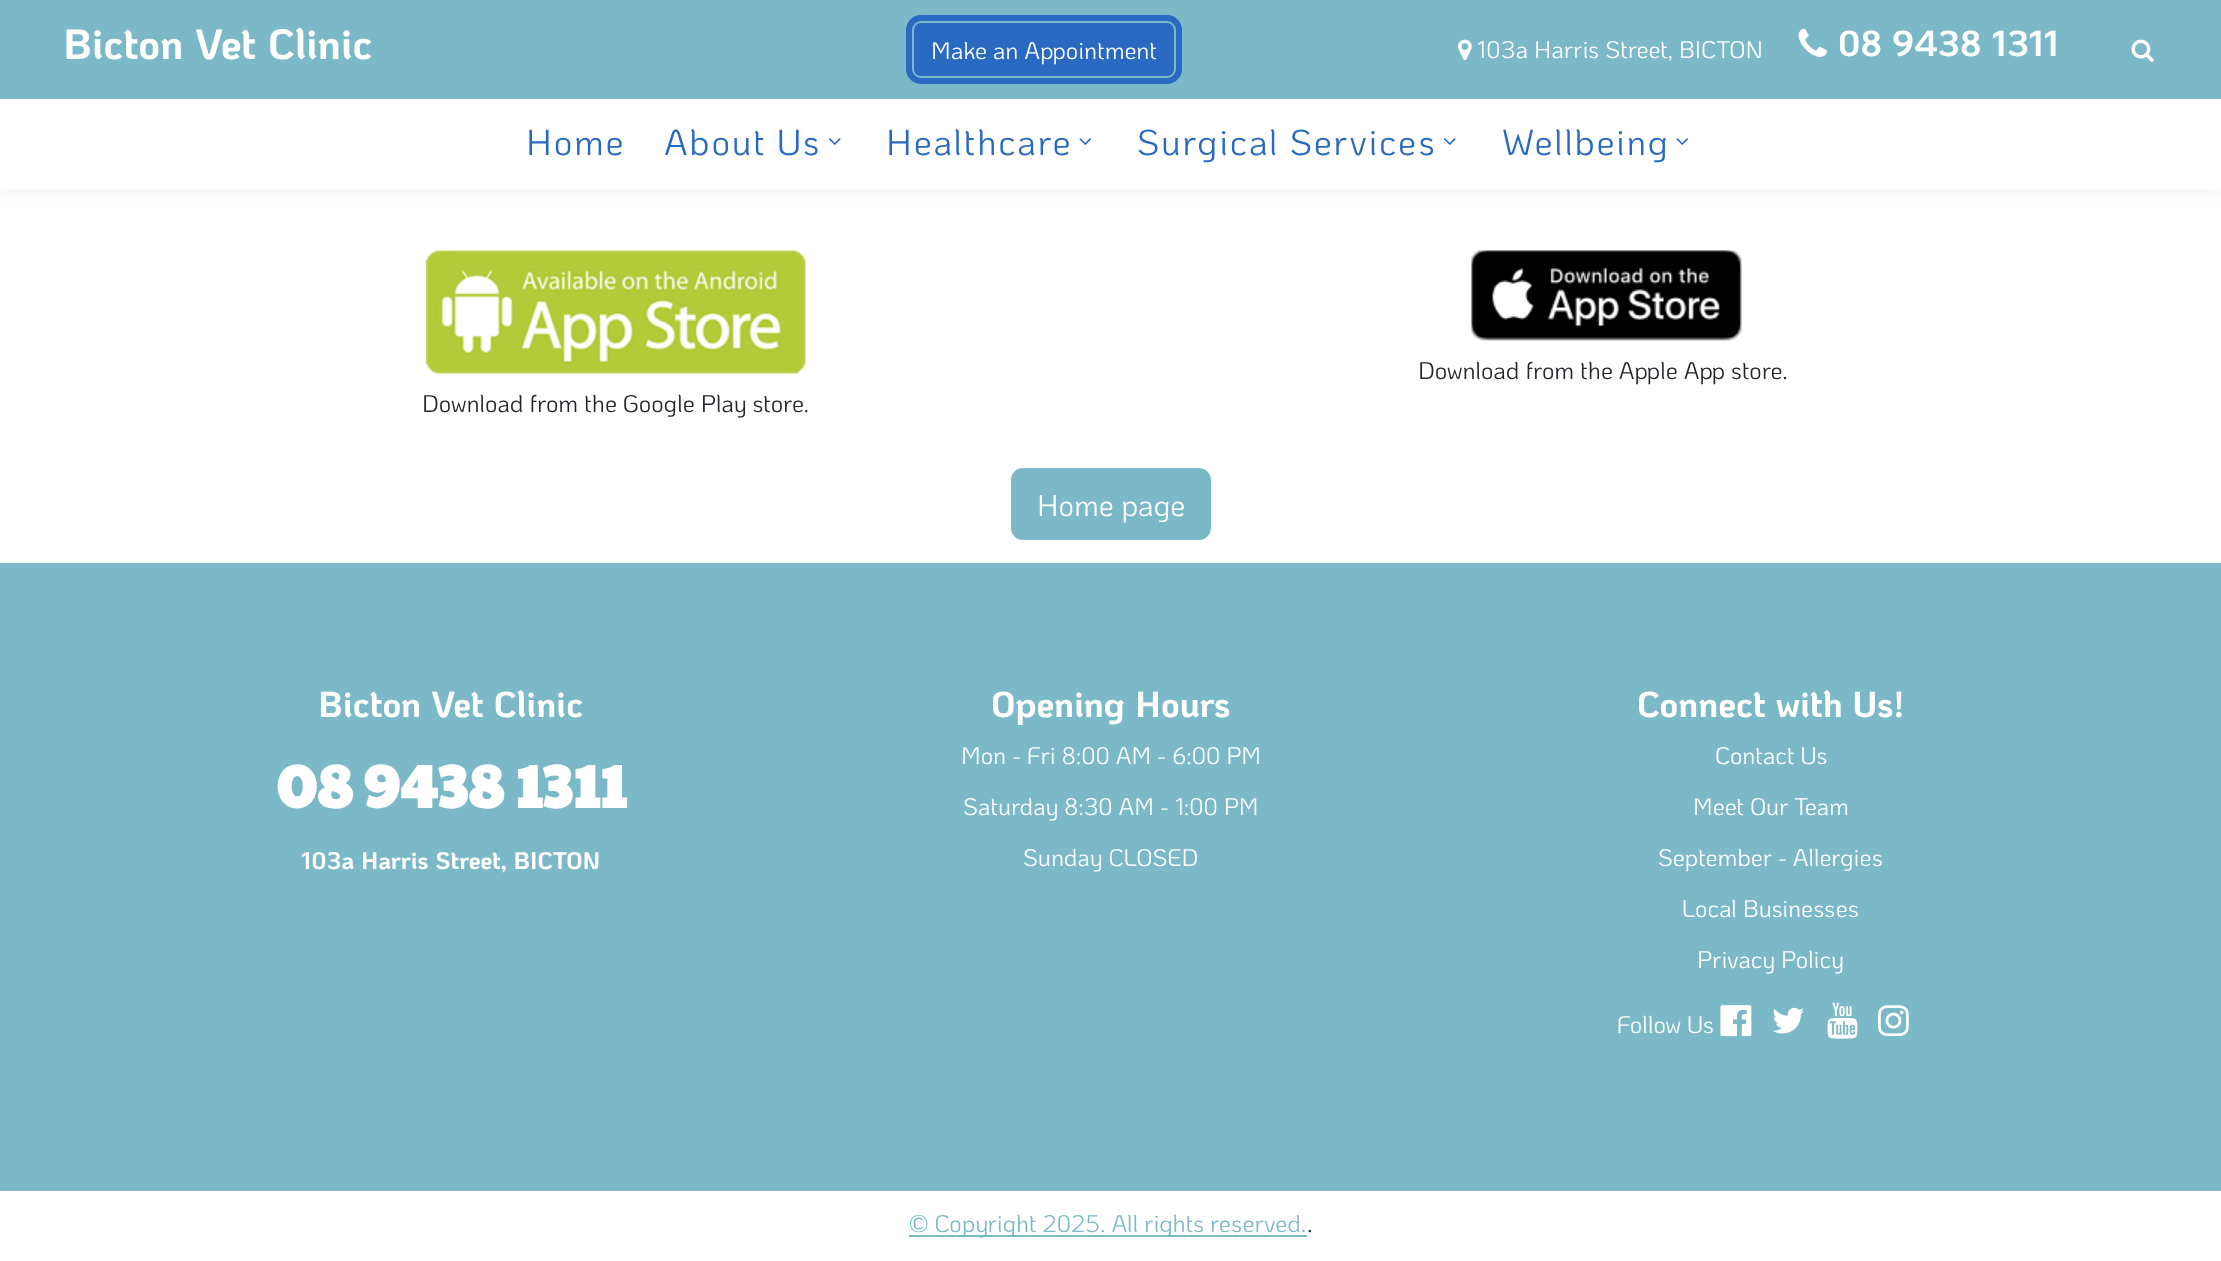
<?xml version="1.0" encoding="UTF-8"?>
<svg xmlns="http://www.w3.org/2000/svg" xmlns:xlink="http://www.w3.org/1999/xlink" width="2221" height="1261">
  <rect width="100%" height="100%" fill="#ffffff" />
  <rect y="3" width="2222" height="189" fill="#888888" fill-opacity="0.1" filter="blur(9px)" />
  <rect y="99" width="2221" height="90" fill="#ffffff" />
  <rect width="2221" height="99" fill="#7cb9c8" />
  <rect x="906" y="15" width="276" height="69" rx="15" fill="#2969c2" />
  <rect x="913" y="22" width="262" height="55" rx="8" fill="none" stroke="#7cb9c8" stroke-width="2" />
  <image x="1458" y="39" width="14" height="22" xlink:href="image1.png" />
  <image x="1798" y="28" width="29" height="29" xlink:href="image2.png" />
  <image x="2131" y="39" width="23" height="23" xlink:href="image3.png" />
  <image x="829" y="138" width="12" height="7" xlink:href="image4.png" />
  <image x="1079" y="138" width="12" height="7" xlink:href="image5.png" />
  <image x="1444" y="138" width="12" height="7" xlink:href="image4.png" />
  <image x="1676" y="138" width="12" height="7" xlink:href="image5.png" />
  <image x="1471" y="250" width="271" height="91" xlink:href="image6.png" />
  <image x="426" y="250" width="380" height="124" xlink:href="image7.png" />
  <rect x="1012" y="469" width="198" height="70" rx="11" fill="#7cb9c8" stroke="#7cb9c8" stroke-width="2" />
  <rect y="563" width="2221" height="628" fill="#7cb9c8" />
  <image x="1720" y="1005" width="32" height="32" xlink:href="image8.png" />
  <image x="1772" y="1007" width="32" height="27" xlink:href="image9.png" />
  <image x="1827" y="1002" width="31" height="37" xlink:href="image10.png" />
  <image x="1878" y="1005" width="31" height="32" xlink:href="image11.png" />
  <rect x="909" y="1235" width="398" height="2" fill="#7cb9c8" />
  <text x="63" y="59" style="font-family: KoHo; font-size: 42px; font-weight: bold; fill: #ffffff">Bicton Vet Clinic</text>
  <text x="931" y="59" style="font-family: KoHo; font-size: 24px; fill: #ffffff">Make an Appointment</text>
  <text x="1477" y="58" style="font-family: KoHo; font-size: 24px; fill: #ffffff">103a Harris Street, BICTON</text>
  <text x="1838" y="56" style="font-family: KoHo; font-size: 36px; font-weight: bold; fill: #ffffff">08 9438 1311</text>
  <text x="526" y="155" style="font-family: KoHo; font-size: 36px; letter-spacing: 1.75px; fill: #2969c2">Home</text>
  <text x="664" y="155" style="font-family: KoHo; font-size: 36px; letter-spacing: 1.75px; fill: #2969c2">About Us</text>
  <text x="886" y="155" style="font-family: KoHo; font-size: 36px; letter-spacing: 1.75px; fill: #2969c2">Healthcare</text>
  <text x="1137" y="155" style="font-family: KoHo; font-size: 36px; letter-spacing: 1.75px; fill: #2969c2">Surgical Services</text>
  <text x="1502" y="155" style="font-family: KoHo; font-size: 36px; letter-spacing: 1.75px; fill: #2969c2">Wellbeing</text>
  <text x="1418" y="379" style="font-family: KoHo; font-size: 24px; fill: #212529">Download from the Apple App store.</text>
  <text x="422" y="412" style="font-family: KoHo; font-size: 24px; fill: #212529">Download from the Google Play store.</text>
  <text x="1037" y="516" style="font-family: KoHo; font-size: 30px; fill: #ffffff">Home page</text>
  <text x="318" y="717" style="font-family: KoHo; font-size: 36px; font-weight: bold; fill: #ffffff">Bicton Vet Clinic</text>
  <text x="276" y="808" style="font-family: Paytone One; font-size: 60px; font-weight: bold; fill: #ffffff">08 9438 1311</text>
  <text x="301" y="869" style="font-family: KoHo; font-size: 24px; font-weight: bold; fill: #ffffff">103a Harris Street, BICTON</text>
  <text x="991" y="717" style="font-family: KoHo; font-size: 36px; font-weight: bold; fill: #ffffff">Opening Hours</text>
  <text x="961" y="764" style="font-family: KoHo; font-size: 24px; fill: #ffffff">Mon - Fri 8:00 AM - 6:00 PM</text>
  <text x="963" y="815" style="font-family: KoHo; font-size: 24px; fill: #ffffff">Saturday 8:30 AM - 1:00 PM</text>
  <text x="1023" y="866" style="font-family: KoHo; font-size: 24px; fill: #ffffff">Sunday CLOSED</text>
  <text x="1637" y="717" style="font-family: KoHo; font-size: 36px; font-weight: bold; fill: #ffffff">Connect with Us!</text>
  <text x="1715" y="764" style="font-family: KoHo; font-size: 24px; fill: #ffffff">Contact Us</text>
  <text x="1693" y="815" style="font-family: KoHo; font-size: 24px; fill: #ffffff">Meet Our Team</text>
  <text x="1658" y="866" style="font-family: KoHo; font-size: 24px; fill: #ffffff">September - Allergies</text>
  <text x="1682" y="917" style="font-family: KoHo; font-size: 24px; fill: #ffffff">Local Businesses</text>
  <text x="1697" y="968" style="font-family: KoHo; font-size: 24px; fill: #ffffff">Privacy Policy</text>
  <text x="1617" y="1033" style="font-family: KoHo; font-size: 24px; fill: #ffffff">Follow Us</text>
  <text x="909" y="1232" style="font-family: KoHo; font-size: 24px; fill: #7cb9c8">© Copyright 2025. All rights reserved.</text>
  <text x="1307" y="1232" style="font-family: KoHo; font-size: 24px; fill: #212529">.</text>
</svg>
